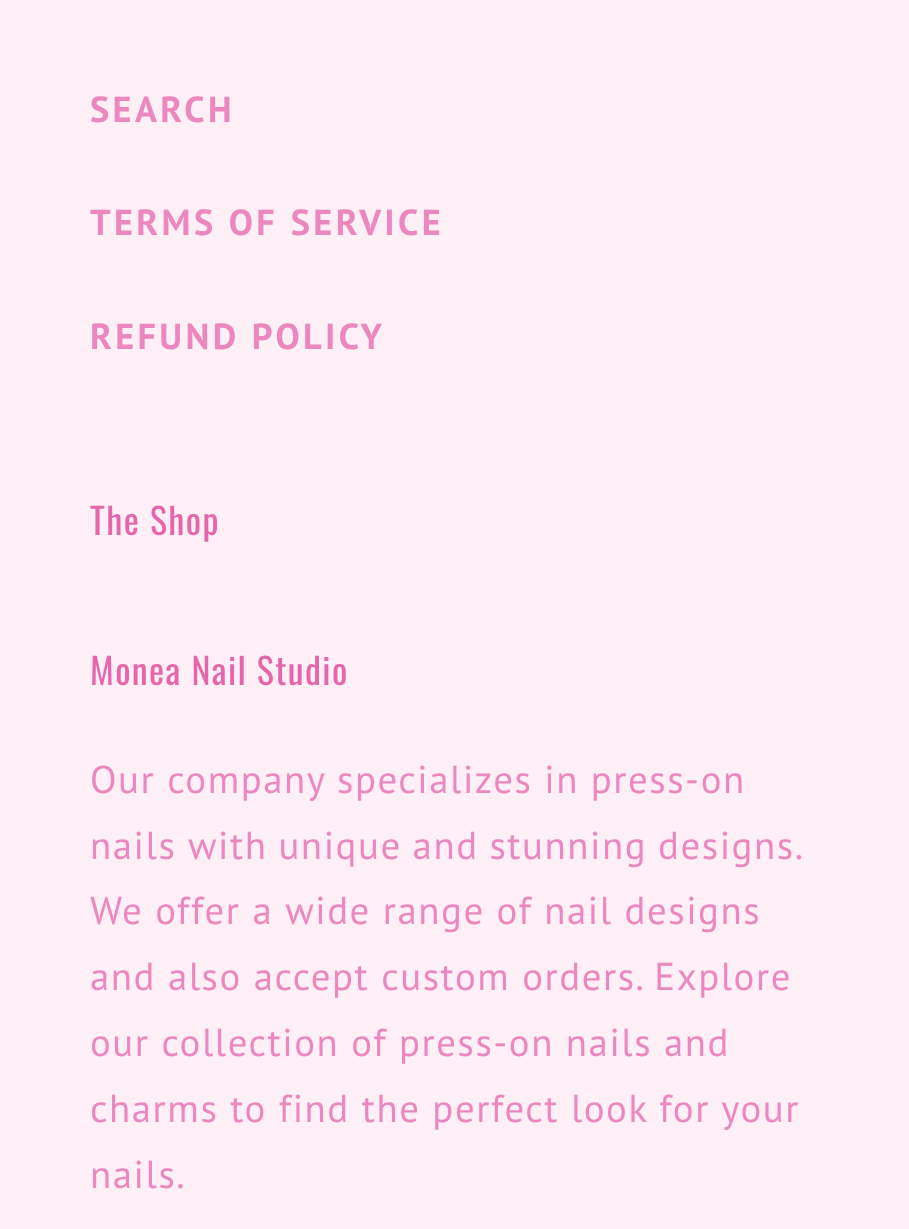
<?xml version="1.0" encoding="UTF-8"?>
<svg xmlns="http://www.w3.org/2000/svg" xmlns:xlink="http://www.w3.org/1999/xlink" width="909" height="1229">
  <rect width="100%" height="100%" fill="#ffeff7" />
  <text x="90" y="122" style="font-family: PT Sans; font-size: 36.25px; font-weight: bold; letter-spacing: 3.4px; fill: #ec88bf">SEARCH</text>
  <text x="90" y="235" style="font-family: PT Sans; font-size: 36.25px; font-weight: bold; letter-spacing: 3.4px; fill: #ec88bf">TERMS OF SERVICE</text>
  <text x="90" y="349" style="font-family: PT Sans; font-size: 36.25px; font-weight: bold; letter-spacing: 3.4px; fill: #ec88bf">REFUND POLICY</text>
  <text x="90" y="535" style="font-family: Oswald; font-size: 36px; letter-spacing: 1.4px; fill: #e666ac">The Shop</text>
  <text x="90" y="685" style="font-family: Oswald; font-size: 36px; letter-spacing: 1.4px; fill: #e666ac">Monea Nail Studio</text>
  <text x="90" y="793" style="font-family: PT Sans; font-size: 38.8px; letter-spacing: 1.55px; fill: #ec88bf">Our company specializes in press-on</text>
  <text x="90" y="859" style="font-family: PT Sans; font-size: 38.8px; letter-spacing: 1.55px; fill: #ec88bf">nails</text>
  <text x="188" y="859" word-spacing="-1" style="font-family: PT Sans; font-size: 38.8px; letter-spacing: 1.55px; fill: #ec88bf">with unique and stunning designs.</text>
  <text x="90" y="924" style="font-family: PT Sans; font-size: 38.8px; letter-spacing: 1.55px; fill: #ec88bf">We offer a wide range of nail designs</text>
  <text x="90" y="990" style="font-family: PT Sans; font-size: 38.8px; letter-spacing: 1.55px; fill: #ec88bf">and also accept custom orders. Explore</text>
  <text x="90" y="1056" style="font-family: PT Sans; font-size: 38.8px; letter-spacing: 1.55px; fill: #ec88bf">our collection of press-on nails and</text>
  <text x="90" y="1122" style="font-family: PT Sans; font-size: 38.8px; letter-spacing: 1.55px; fill: #ec88bf">charms to find the perfect look for your</text>
  <text x="90" y="1188" style="font-family: PT Sans; font-size: 38.8px; letter-spacing: 1.55px; fill: #ec88bf">nails.</text>
</svg>
